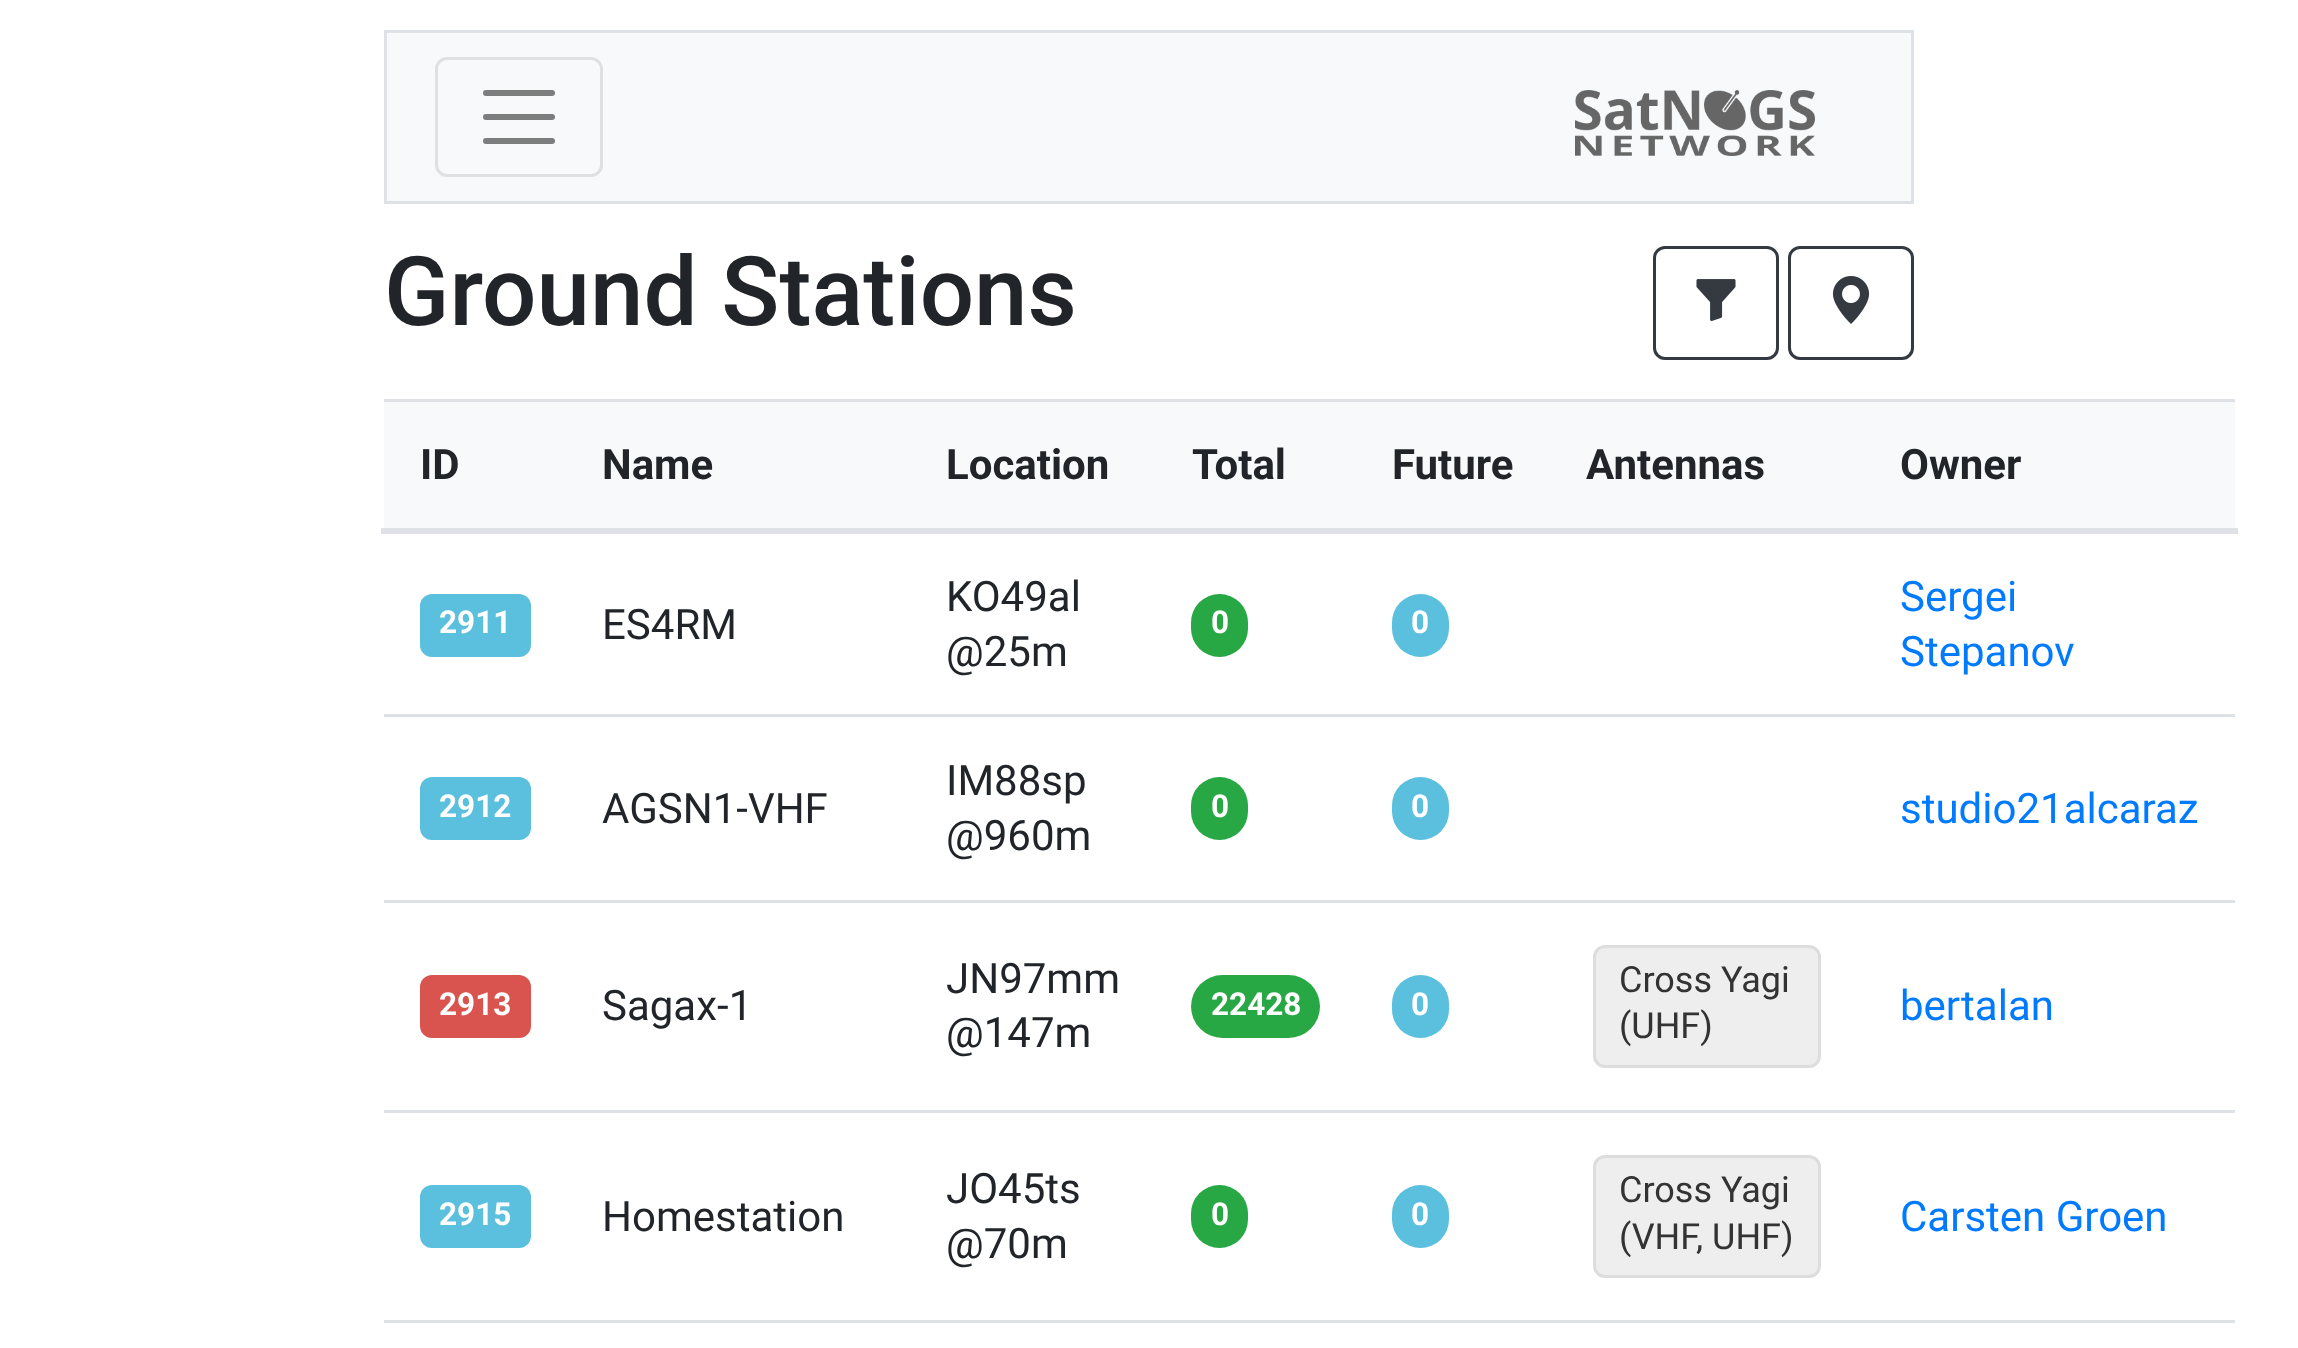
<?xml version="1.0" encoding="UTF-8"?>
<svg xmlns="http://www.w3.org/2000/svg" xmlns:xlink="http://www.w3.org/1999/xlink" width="2298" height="1348">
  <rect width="100%" height="100%" fill="#ffffff" />
  <rect x="385.5" y="31.5" width="1527" height="171" fill="#f8f9fa" stroke="#dee2e6" stroke-width="3" />
  <rect x="436.5" y="58.5" width="165" height="117" rx="10.5" fill="none" stroke="#dfe0e1" stroke-width="3" />
  <path d="M 486 93 h 66 m -66 24 h 66 m -66 24 h 66" fill="none" stroke="#7c7d7d" stroke-width="6" stroke-linecap="round" />
  <image x="1575" y="90" width="240" height="66" xlink:href="image1.png" />
  <rect x="1654.5" y="247.5" width="123" height="111" rx="10.5" fill="none" stroke="#343a40" stroke-width="3" />
  <image x="1696" y="279" width="40" height="42" xlink:href="image2.png" />
  <rect x="1789.5" y="247.5" width="123" height="111" rx="10.5" fill="none" stroke="#343a40" stroke-width="3" />
  <image x="1832" y="276" width="38" height="48" xlink:href="image3.png" />
  <rect x="384" y="402" width="1851" height="126" fill="#f8f9fa" />
  <rect x="384" y="399" width="1851" height="3" fill="#dee2e6" />
  <rect x="381" y="528" width="1857" height="6" fill="#dee2e6" />
  <rect x="420" y="594" width="111" height="63" rx="12" fill="#5bc0de" />
  <rect x="1191" y="594" width="57" height="63" rx="28.5" fill="#28a745" />
  <rect x="1392" y="594" width="57" height="63" rx="28.5" fill="#5bc0de" />
  <rect x="420" y="777" width="111" height="63" rx="12" fill="#5bc0de" />
  <rect x="1191" y="777" width="57" height="63" rx="28.5" fill="#28a745" />
  <rect x="1392" y="777" width="57" height="63" rx="28.5" fill="#5bc0de" />
  <rect x="384" y="714" width="1851" height="3" fill="#dee2e6" />
  <rect x="420" y="975" width="111" height="63" rx="12" fill="#d9534f" />
  <rect x="1191" y="975" width="129" height="63" rx="31.5" fill="#28a745" />
  <rect x="1392" y="975" width="57" height="63" rx="28.5" fill="#5bc0de" />
  <rect x="1594.5" y="946.5" width="225" height="120" rx="10.5" fill="#eeeeee" stroke="#dddddd" stroke-width="3" />
  <rect x="384" y="900" width="1851" height="3" fill="#dee2e6" />
  <rect x="420" y="1185" width="111" height="63" rx="12" fill="#5bc0de" />
  <rect x="1191" y="1185" width="57" height="63" rx="28.5" fill="#28a745" />
  <rect x="1392" y="1185" width="57" height="63" rx="28.5" fill="#5bc0de" />
  <rect x="1594.5" y="1156.5" width="225" height="120" rx="10.5" fill="#eeeeee" stroke="#dddddd" stroke-width="3" />
  <rect x="384" y="1110" width="1851" height="3" fill="#dee2e6" />
  <rect x="384" y="1320" width="1851" height="3" fill="#dee2e6" />
  <text x="384" y="325" style="font-family: Roboto; font-size: 96px; font-weight: 500; fill: #212529">Ground Stations</text>
  <text x="420" y="479" style="font-family: Roboto; font-size: 42px; font-weight: bold; fill: #212529">ID</text>
  <text x="602" y="479" style="font-family: Roboto; font-size: 42px; font-weight: bold; fill: #212529">Name</text>
  <text x="946" y="479" style="font-family: Roboto; font-size: 42px; font-weight: bold; fill: #212529">Location</text>
  <text x="1192" y="479" style="font-family: Roboto; font-size: 42px; font-weight: bold; fill: #212529">Total</text>
  <text x="1392" y="479" style="font-family: Roboto; font-size: 42px; font-weight: bold; fill: #212529">Future</text>
  <text x="1586" y="479" style="font-family: Roboto; font-size: 42px; font-weight: bold; fill: #212529">Antennas</text>
  <text x="1900" y="479" style="font-family: Roboto; font-size: 42px; font-weight: bold; fill: #212529">Owner</text>
  <text x="439" y="633" style="font-family: Roboto; font-size: 31.5px; font-weight: bold; fill: #ffffff">2911</text>
  <text x="602" y="639" style="font-family: Roboto; font-size: 42px; fill: #212529">ES4RM</text>
  <text x="946" y="611" style="font-family: Roboto; font-size: 42px; fill: #212529">KO49al</text>
  <text x="946" y="666" style="font-family: Roboto; font-size: 42px; fill: #212529">@25m</text>
  <text x="1211" y="633" style="font-family: Roboto; font-size: 31.5px; font-weight: bold; fill: #ffffff">0</text>
  <text x="1411" y="633" style="font-family: Roboto; font-size: 31.5px; font-weight: bold; fill: #ffffff">0</text>
  <text x="1900" y="611" style="font-family: Roboto; font-size: 42px; fill: #007bff">Sergei</text>
  <text x="1900" y="666" style="font-family: Roboto; font-size: 42px; fill: #007bff">Stepanov</text>
  <text x="439" y="817" style="font-family: Roboto; font-size: 31.5px; font-weight: bold; fill: #ffffff">2912</text>
  <text x="602" y="823" style="font-family: Roboto; font-size: 42px; fill: #212529">AGSN1-VHF</text>
  <text x="946" y="795" style="font-family: Roboto; font-size: 42px; fill: #212529">IM88sp</text>
  <text x="946" y="850" style="font-family: Roboto; font-size: 42px; fill: #212529">@960m</text>
  <text x="1211" y="817" style="font-family: Roboto; font-size: 31.5px; font-weight: bold; fill: #ffffff">0</text>
  <text x="1411" y="817" style="font-family: Roboto; font-size: 31.5px; font-weight: bold; fill: #ffffff">0</text>
  <text x="1900" y="823" style="font-family: Roboto; font-size: 42px; fill: #007bff">studio21alcaraz</text>
  <text x="439" y="1015" style="font-family: Roboto; font-size: 31.5px; font-weight: bold; fill: #ffffff">2913</text>
  <text x="602" y="1020" style="font-family: Roboto; font-size: 42px; fill: #212529">Sagax-1</text>
  <text x="946" y="993" style="font-family: Roboto; font-size: 42px; fill: #212529">JN97mm</text>
  <text x="946" y="1047" style="font-family: Roboto; font-size: 42px; fill: #212529">@147m</text>
  <text x="1211" y="1015" style="font-family: Roboto; font-size: 31.5px; font-weight: bold; fill: #ffffff">22428</text>
  <text x="1411" y="1015" style="font-family: Roboto; font-size: 31.5px; font-weight: bold; fill: #ffffff">0</text>
  <text x="1619" y="992" style="font-family: Roboto; font-size: 36px; fill: #333333">Cross Yagi</text>
  <text x="1619" y="1038" style="font-family: Roboto; font-size: 36px; fill: #333333">(UHF)</text>
  <text x="1900" y="1020" style="font-family: Roboto; font-size: 42px; fill: #007bff">bertalan</text>
  <text x="439" y="1225" style="font-family: Roboto; font-size: 31.5px; font-weight: bold; fill: #ffffff">2915</text>
  <text x="602" y="1231" style="font-family: Roboto; font-size: 42px; fill: #212529">Homestation</text>
  <text x="946" y="1203" style="font-family: Roboto; font-size: 42px; fill: #212529">JO45ts</text>
  <text x="946" y="1258" style="font-family: Roboto; font-size: 42px; fill: #212529">@70m</text>
  <text x="1211" y="1225" style="font-family: Roboto; font-size: 31.5px; font-weight: bold; fill: #ffffff">0</text>
  <text x="1411" y="1225" style="font-family: Roboto; font-size: 31.5px; font-weight: bold; fill: #ffffff">0</text>
  <text x="1619" y="1202" style="font-family: Roboto; font-size: 36px; fill: #333333">Cross Yagi</text>
  <text x="1619" y="1249" style="font-family: Roboto; font-size: 36px; fill: #333333">(VHF, UHF)</text>
  <text x="1900" y="1231" style="font-family: Roboto; font-size: 42px; fill: #007bff">Carsten Groen</text>
</svg>
